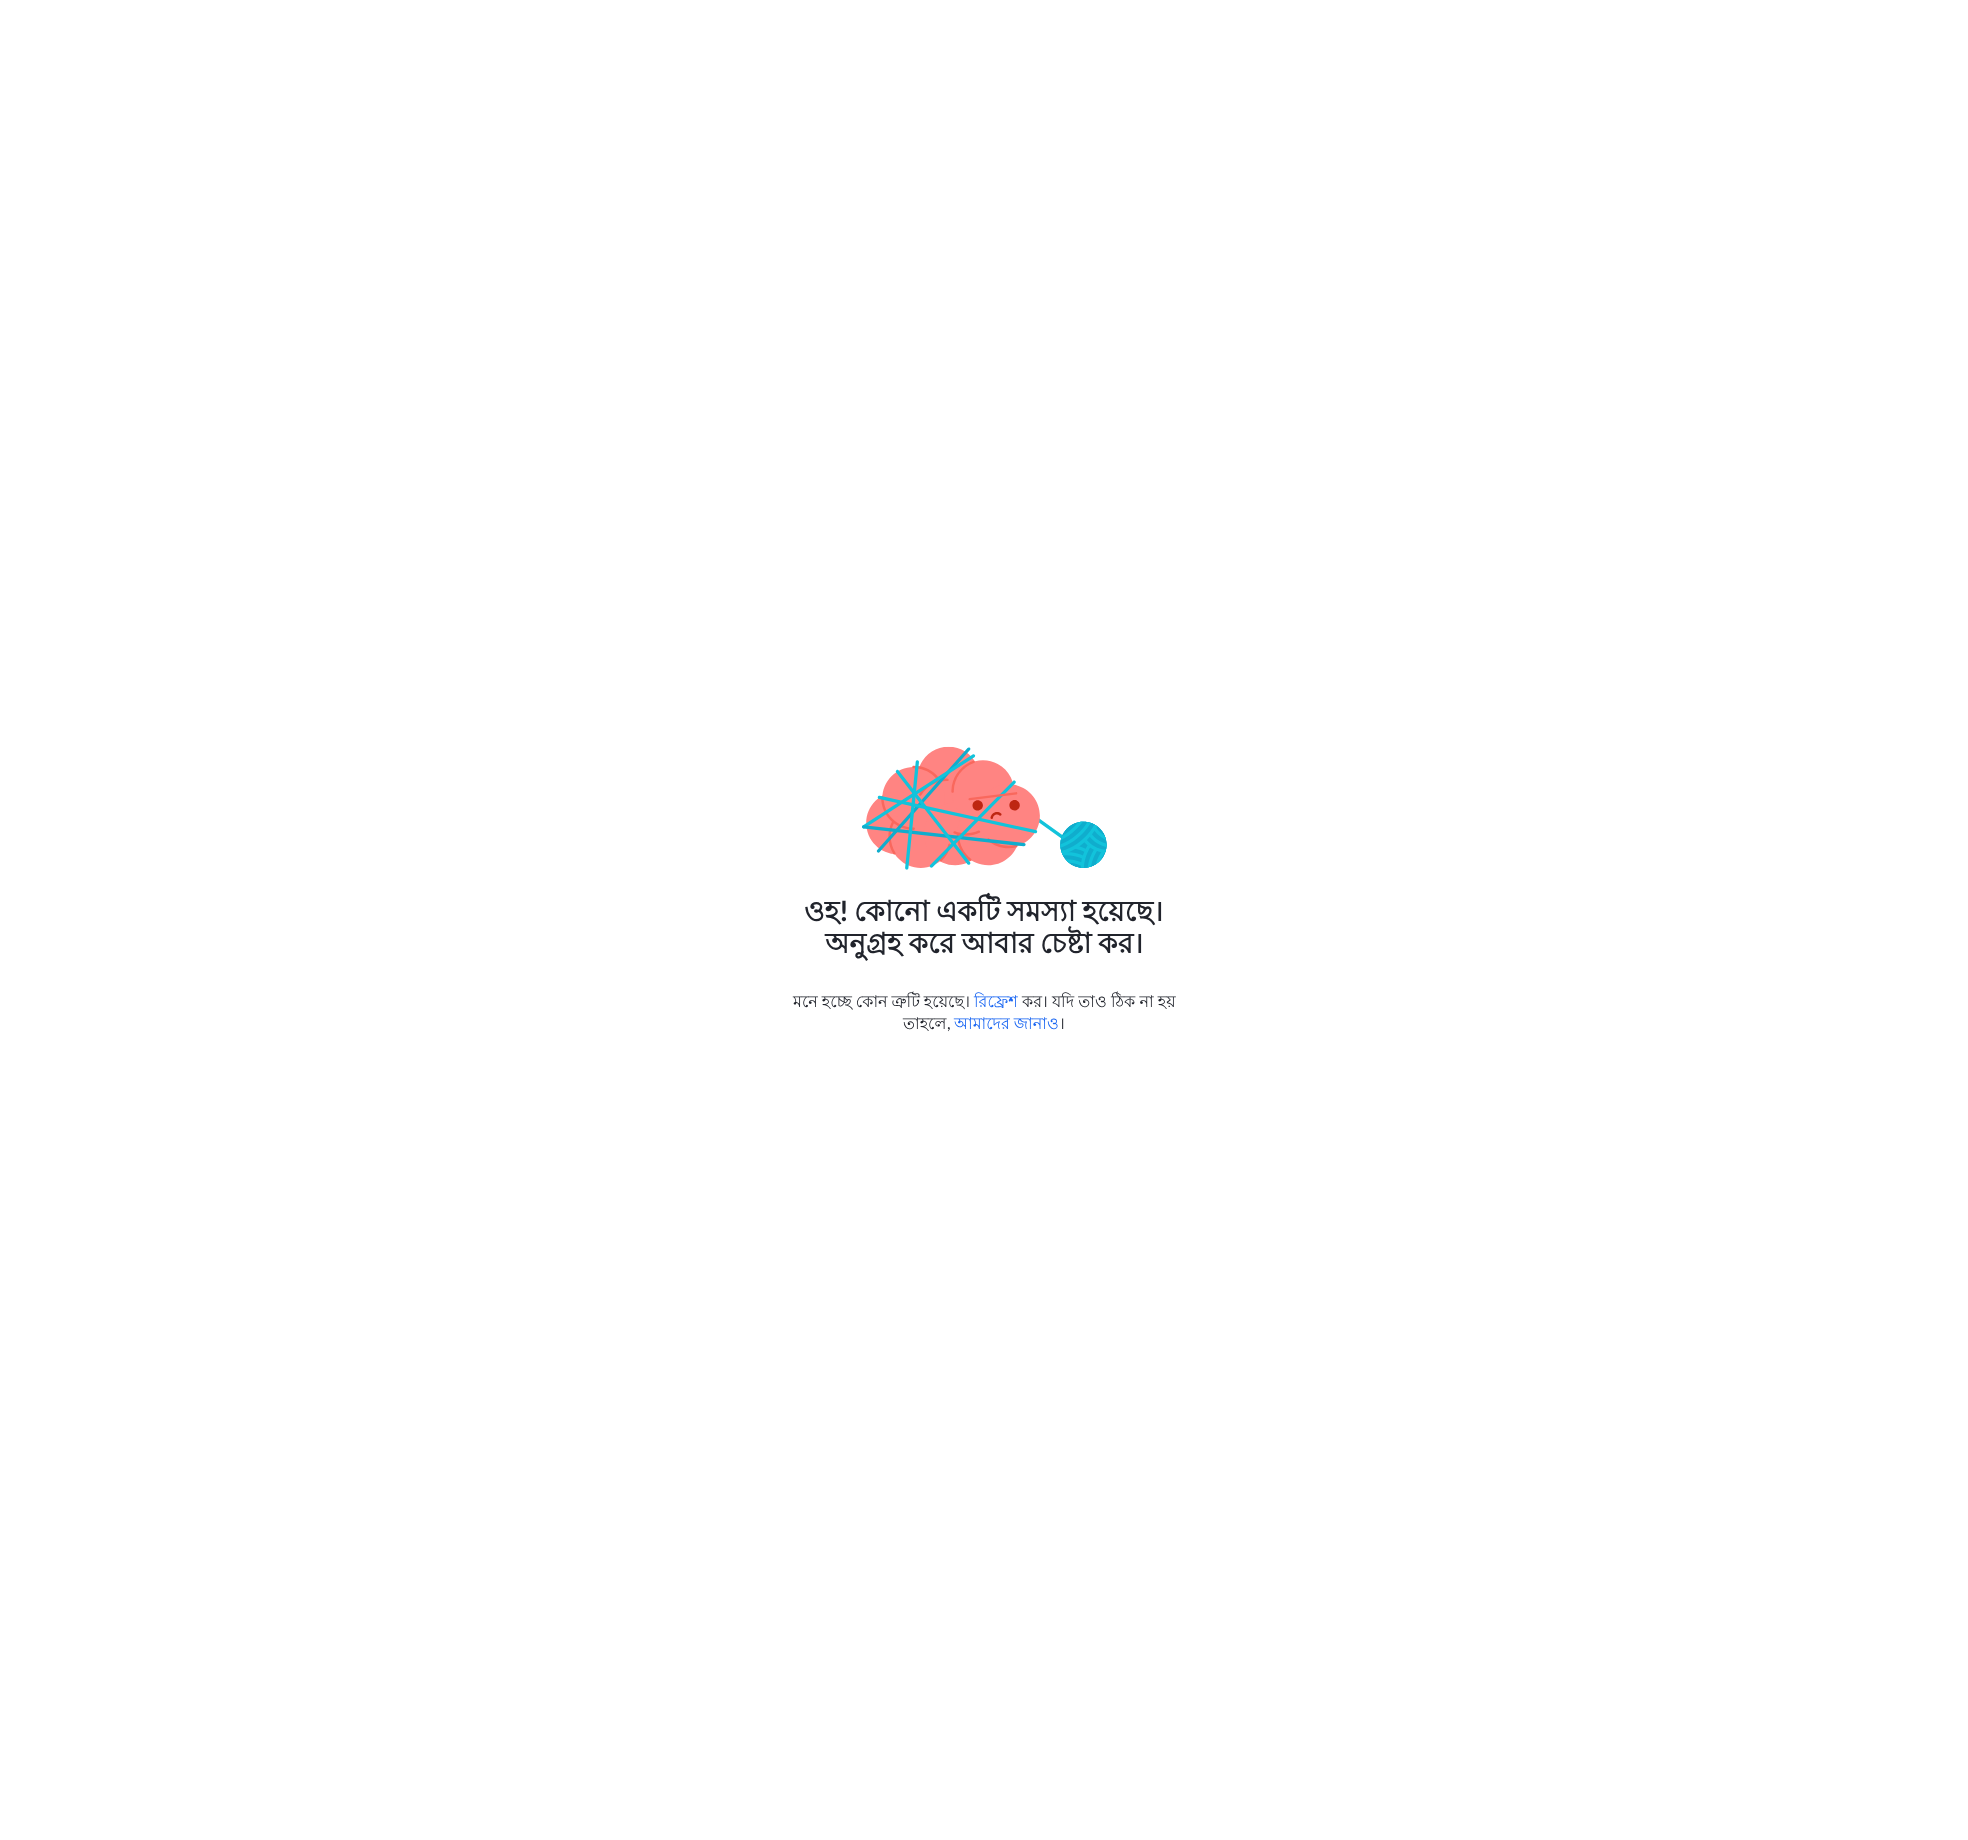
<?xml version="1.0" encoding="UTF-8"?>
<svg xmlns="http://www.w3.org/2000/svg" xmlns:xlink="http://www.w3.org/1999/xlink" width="1968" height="1840">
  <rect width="100%" height="100%" fill="#ffffff" />
  <image x="862" y="746" width="245" height="124" xlink:href="image1.png" />
  <text x="804" y="921" style="font-family: Lohit Bengali; font-size: 28px; font-weight: bold; fill: #21242c">ওহ</text>
  <text x="840" y="921" style="font-family: Lato; font-size: 28px; font-weight: bold; fill: #21242c">!</text>
  <text x="854" y="921" word-spacing="-1" style="font-family: Lohit Bengali; font-size: 28px; font-weight: bold; fill: #21242c">কোনো একটি সমস্যা হয়েছে।</text>
  <text x="825" y="953" word-spacing="-1" style="font-family: Lohit Bengali; font-size: 28px; font-weight: bold; fill: #21242c">অনুগ্রহ করে আবার চেষ্টা কর।</text>
  <text x="793" y="1007" word-spacing="-0.5" style="font-family: Lohit Bengali; font-size: 16px; fill: #21242c">মনে হচ্ছে কোন ত্রুটি হয়েছে।</text>
  <text x="974" y="1007" style="font-family: Lohit Bengali; font-size: 16px; fill: #1865f2">রিফ্রেশ</text>
  <text x="1022" y="1007" word-spacing="-0.25" style="font-family: Lohit Bengali; font-size: 16px; fill: #21242c">কর। যদি তাও ঠিক না হয়</text>
  <text x="903" y="1029" style="font-family: Lohit Bengali; font-size: 16px; fill: #21242c">তাহলে</text>
  <text x="954" y="1029" word-spacing="-0.5" style="font-family: Lohit Bengali; font-size: 16px; fill: #1865f2">আমাদের জানাও</text>
  <text x="1059" y="1029" style="font-family: Lohit Bengali; font-size: 16px; fill: #21242c">।</text>
  <text x="947" y="1029" style="font-family: Lato; font-size: 16px; fill: #21242c">,</text>
</svg>
